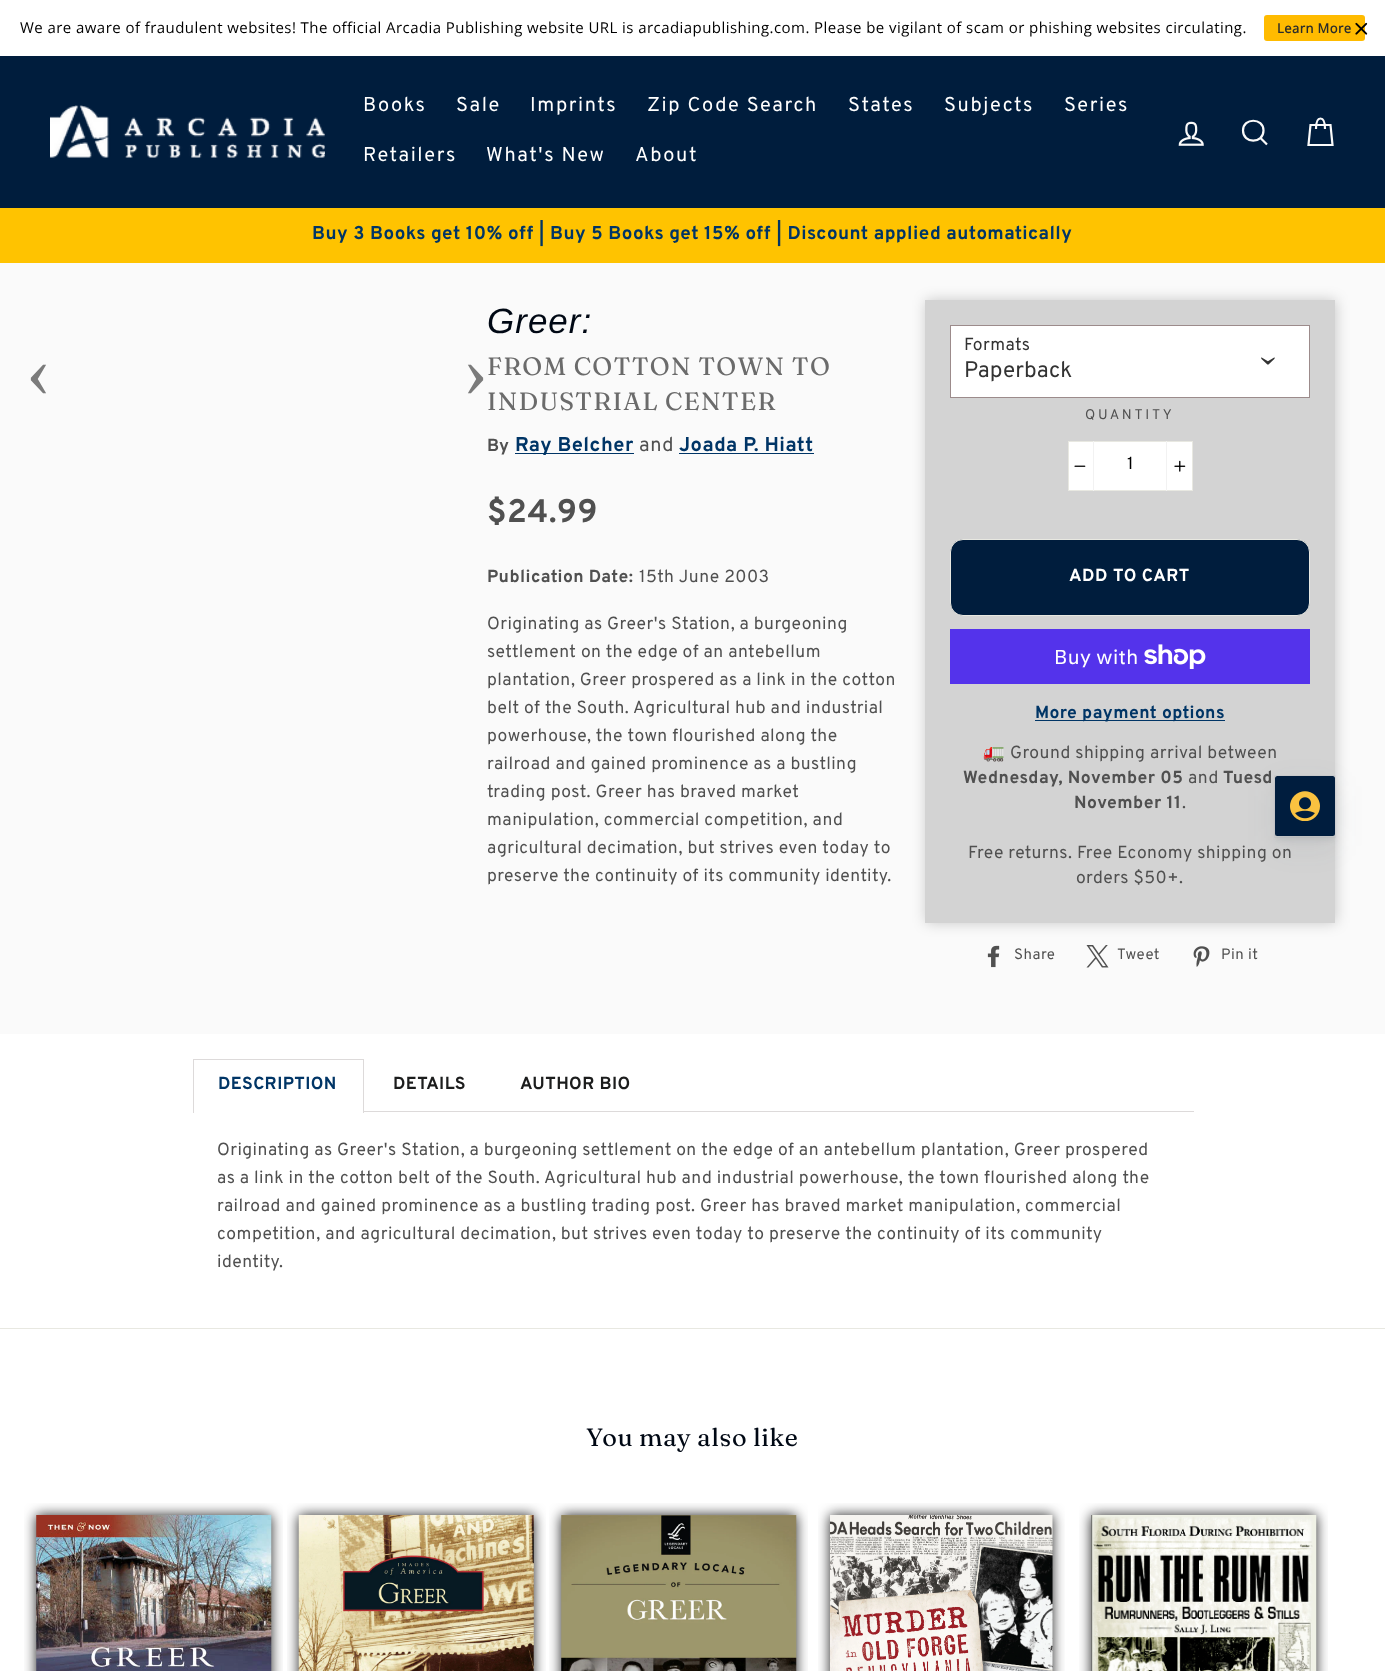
<?xml version="1.0" encoding="UTF-8"?>
<svg xmlns="http://www.w3.org/2000/svg" xmlns:xlink="http://www.w3.org/1999/xlink" width="1385" height="1671">
  <defs>
    <clipPath id="clip1"><rect x="50" y="220" width="1285" height="30" /></clipPath>
  </defs>
  <rect width="100%" height="100%" fill="#ffffff" />
  <rect x="1264" y="15" width="101" height="26" rx="3" fill="#ffbb00" />
  <image x="1355" y="22" width="13" height="13" xlink:href="image1.png" />
  <rect y="56" width="1385" height="152" fill="#001d3d" />
  <image x="50" y="105" width="275" height="53" xlink:href="image2.png" />
  <image x="1178" y="121" width="26" height="25" xlink:href="image3.png" />
  <path d="M 1263.5 130.5 c 0 13.5 -20.5 13.5 -20.5 0 c 0 -13 20.5 -13 20.5 0 z m 3.5 14 l -6.5 -6.5" fill="none" stroke="#fafafa" stroke-width="2.2" />
  <path d="M 1316 129 c 0 -8.5 2 -10.5 4.5 -10.5 c 2.5 0 4.5 2 4.5 10.5 m -14.5 -4 h 20 l 2 20 h -24 z" fill="none" stroke="#fafafa" stroke-width="2.2" />
  <rect y="208" width="1385" height="55" fill="#ffc300" />
  <rect y="263" width="1385" height="771" fill="#fafafa" />
  <rect x="515" y="453" width="119" height="1" fill="#003566" />
  <rect x="679" y="453" width="135" height="1" fill="#003566" />
  <rect x="926" y="300" width="410" height="623" fill="#000000" fill-opacity="0.2" filter="blur(7px)" />
  <rect x="925" y="300" width="410" height="623" fill="#d3d3d3" />
  <rect x="950.5" y="325.5" width="359" height="72" fill="#ffffff" stroke="#9c8b8b" />
  <rect x="1068.5" y="441.5" width="124" height="49" fill="#ffffff" stroke="#e8e8e1" />
  <rect x="1093" y="441" width="1" height="50" fill="#f2f2f2" />
  <image x="1074" y="465" width="12" height="2" xlink:href="image4.png" />
  <rect x="1166" y="441" width="1" height="50" fill="#f2f2f2" />
  <image x="1174" y="460" width="12" height="12" xlink:href="image5.png" />
  <rect x="950.5" y="539.5" width="359" height="76" rx="12.5" fill="#001d3d" stroke="#e8e8e1" />
  <rect x="950" y="629" width="360" height="55" fill="#5433eb" />
  <image x="1144" y="644" width="62" height="25" xlink:href="image6.png" />
  <rect x="1035" y="720" width="190" height="1" fill="#003566" />
  <image x="987" y="945" width="13" height="23" xlink:href="image7.png" />
  <image x="1086" y="945" width="23" height="23" xlink:href="image8.png" />
  <image x="1193" y="946" width="17" height="21" xlink:href="image9.png" />
  <rect x="193" y="1059" width="171" height="1" fill="#dddada" />
  <rect x="363" y="1059" width="1" height="54" fill="#dddada" />
  <rect x="193" y="1059" width="1" height="54" fill="#dddada" />
  <rect x="364" y="1111" width="830" height="1" fill="#dddada" />
  <rect y="1328" width="1385" height="1" fill="#e8e8e1" />
  <image x="24" y="1503" width="259" height="168" xlink:href="image10.png" />
  <image x="287" y="1503" width="259" height="168" xlink:href="image11.png" />
  <image x="549" y="1503" width="259" height="168" xlink:href="image12.png" />
  <image x="818" y="1503" width="247" height="168" xlink:href="image13.png" />
  <image x="1079" y="1503" width="249" height="168" xlink:href="image14.png" />
  <rect x="1275" y="786" width="60" height="60" rx="2.5" fill="#373f47" fill-opacity="0.08" filter="blur(15px)" />
  <rect x="1275" y="781" width="60" height="60" rx="2.5" fill="#373f47" fill-opacity="0.08" filter="blur(2.5px)" />
  <rect x="1274.5" y="775.5" width="61" height="62" fill="none" stroke="#373f47" stroke-opacity="0.04" />
  <rect x="1275" y="776" width="60" height="60" rx="2.5" fill="#001d3e" />
  <image x="1290" y="791" width="30" height="30" xlink:href="image15.png" />
  <text x="20" y="33" style="font-family: Open Sans; font-size: 15px; letter-spacing: 0.44px; fill: #000000">We are aware of fraudulent websites! The official Arcadia Publishing website URL is arcadiapublishing.com. Please be vigilant of scam or phishing websites circulating.</text>
  <text x="1277" y="33" style="font-family: Open Sans; font-size: 13px; font-weight: bold; letter-spacing: 0.44px; fill: #2a2c2b">Learn More</text>
  <text x="363" y="111" style="font-family: Overpass; font-size: 20px; letter-spacing: 1.6px; fill: #ffffff">Books</text>
  <text x="456" y="111" style="font-family: Overpass; font-size: 20px; letter-spacing: 1.6px; fill: #ffffff">Sale</text>
  <text x="530" y="111" style="font-family: Overpass; font-size: 20px; letter-spacing: 1.6px; fill: #ffffff">Imprints</text>
  <text x="647" y="111" style="font-family: Overpass; font-size: 20px; letter-spacing: 1.6px; fill: #ffffff">Zip Code Search</text>
  <text x="848" y="111" style="font-family: Overpass; font-size: 20px; letter-spacing: 1.6px; fill: #ffffff">States</text>
  <text x="944" y="111" style="font-family: Overpass; font-size: 20px; letter-spacing: 1.6px; fill: #ffffff">Subjects</text>
  <text x="1064" y="111" style="font-family: Overpass; font-size: 20px; letter-spacing: 1.6px; fill: #ffffff">Series</text>
  <text x="363" y="161" style="font-family: Overpass; font-size: 20px; letter-spacing: 1.6px; fill: #ffffff">Retailers</text>
  <text x="486" y="161" style="font-family: Overpass; font-size: 20px; letter-spacing: 1.6px; fill: #ffffff">What's New</text>
  <text x="635" y="161" style="font-family: Overpass; font-size: 20px; letter-spacing: 1.6px; fill: #ffffff">About</text>
  <g clip-path="url(#clip1)">
    <text x="312" y="239" style="font-family: Overpass; font-size: 18.75px; font-weight: bold; letter-spacing: 0.44px; fill: #003566">Buy 3 Books get 10% off | Buy 5 Books get 15% off | Discount applied automatically</text>
  </g>
  <text x="26" y="396" style="font-family: Liberation Serif; font-size: 75px; fill: #7b7b7b">‹</text>
  <text x="463" y="396" style="font-family: Liberation Serif; font-size: 75px; fill: #7b7b7b">›</text>
  <text x="487" y="333" style="font-family: Liberation Sans; font-size: 35px; font-style: italic; letter-spacing: 1px; fill: #000814">Greer:</text>
  <text x="487" y="375" word-spacing="-0.5" style="font-family: Fraunces; font-size: 25px; letter-spacing: 1.25px; fill: #6b6b6b">FROM COTTON TOWN TO</text>
  <text x="487" y="410" word-spacing="-1" style="font-family: Fraunces; font-size: 25px; letter-spacing: 1.25px; fill: #6b6b6b">INDUSTRIAL CENTER</text>
  <text x="487" y="451" style="font-family: Overpass; font-size: 17.5px; font-weight: bold; letter-spacing: 0.44px; fill: #505050">By</text>
  <text x="515" y="451" style="font-family: Overpass; font-size: 20px; font-weight: bold; letter-spacing: 0.44px; fill: #003566">Ray Belcher</text>
  <text x="639" y="451" style="font-family: Overpass; font-size: 20px; letter-spacing: 0.44px; fill: #505050">and</text>
  <text x="679" y="451" style="font-family: Overpass; font-size: 20px; font-weight: bold; letter-spacing: 0.44px; fill: #003566">Joada P. Hiatt</text>
  <text x="487" y="522" style="font-family: Overpass; font-size: 32.5px; font-weight: bold; letter-spacing: 0.44px; fill: #505050">$24.99</text>
  <text x="487" y="582" style="font-family: Overpass; font-size: 17.5px; font-weight: bold; letter-spacing: 0.44px; fill: #505050">Publication Date:</text>
  <text x="639" y="582" style="font-family: Overpass; font-size: 17.5px; letter-spacing: 0.44px; fill: #505050">15th June 2003</text>
  <text x="487" y="629" style="font-family: Overpass; font-size: 17.5px; letter-spacing: 0.44px; fill: #505050">Originating as Greer's Station, a burgeoning</text>
  <text x="487" y="657" style="font-family: Overpass; font-size: 17.5px; letter-spacing: 0.44px; fill: #505050">settlement on the edge of an antebellum</text>
  <text x="487" y="685" style="font-family: Overpass; font-size: 17.5px; letter-spacing: 0.44px; fill: #505050">plantation, Greer prospered as a link in the cotton</text>
  <text x="487" y="713" style="font-family: Overpass; font-size: 17.5px; letter-spacing: 0.44px; fill: #505050">belt of the South. Agricultural hub and industrial</text>
  <text x="487" y="741" style="font-family: Overpass; font-size: 17.5px; letter-spacing: 0.44px; fill: #505050">powerhouse, the town flourished along the</text>
  <text x="487" y="769" style="font-family: Overpass; font-size: 17.5px; letter-spacing: 0.44px; fill: #505050">railroad and gained prominence as a bustling</text>
  <text x="487" y="797" style="font-family: Overpass; font-size: 17.5px; letter-spacing: 0.44px; fill: #505050">trading post. Greer has braved market</text>
  <text x="487" y="825" style="font-family: Overpass; font-size: 17.5px; letter-spacing: 0.44px; fill: #505050">manipulation, commercial competition, and</text>
  <text x="487" y="853" style="font-family: Overpass; font-size: 17.5px; letter-spacing: 0.44px; fill: #505050">agricultural decimation, but strives even today to</text>
  <text x="487" y="881" style="font-family: Overpass; font-size: 17.5px; letter-spacing: 0.44px; fill: #505050">preserve the continuity of its community identity.</text>
  <text x="964" y="350" style="font-family: Overpass; font-size: 17.5px; letter-spacing: 0.44px; fill: #333333">Formats</text>
  <text x="964" y="377" style="font-family: Overpass; font-size: 22.5px; fill: #333333">Paperback</text>
  <text x="1260" y="355" transform="rotate(90 1260 355)" style="font-family: Liberation Serif; font-size: 35px; fill: #333333">›</text>
  <text x="1085" y="419" style="font-family: Overpass; font-size: 14px; letter-spacing: 2.75px; fill: #505050">QUANTITY</text>
  <text x="1127" y="469" style="font-family: Overpass; font-size: 17.5px; letter-spacing: 0.44px; fill: #000000">1</text>
  <text x="1069" y="581" style="font-family: Overpass; font-size: 17.5px; font-weight: bold; letter-spacing: 0.6px; fill: #ffffff">ADD TO CART</text>
  <text x="1054" y="664" style="font-family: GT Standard; font-size: 20px; letter-spacing: 0.44px; fill: #ffffff">Buy with</text>
  <text x="1035" y="718" style="font-family: Overpass; font-size: 17.5px; font-weight: bold; letter-spacing: 0.44px; fill: #003566">More payment options</text>
  <text x="983" y="758" style="font-family: Noto Color Emoji; font-size: 17.5px; letter-spacing: 0.44px; fill: #505050">🚛</text>
  <text x="1010" y="758" style="font-family: Overpass; font-size: 17.5px; letter-spacing: 0.44px; fill: #505050">Ground shipping arrival between</text>
  <text x="963" y="783" style="font-family: Overpass; font-size: 17.5px; font-weight: bold; letter-spacing: 0.44px; fill: #505050">Wednesday, November 05</text>
  <text x="1188" y="783" style="font-family: Overpass; font-size: 17.5px; letter-spacing: 0.44px; fill: #505050">and</text>
  <text x="1223" y="783" style="font-family: Overpass; font-size: 17.5px; font-weight: bold; letter-spacing: 0.44px; fill: #505050">Tuesd</text>
  <text x="1074" y="808" style="font-family: Overpass; font-size: 17.5px; font-weight: bold; letter-spacing: 0.44px; fill: #505050">November 11</text>
  <text x="1182" y="808" style="font-family: Overpass; font-size: 17.5px; letter-spacing: 0.44px; fill: #505050">.</text>
  <text x="968" y="858" style="font-family: Overpass; font-size: 17.5px; letter-spacing: 0.44px; fill: #505050">Free returns. Free Economy shipping on</text>
  <text x="1076" y="883" style="font-family: Overpass; font-size: 17.5px; letter-spacing: 0.44px; fill: #505050">orders $50+.</text>
  <text x="1014" y="959" style="font-family: Overpass; font-size: 15px; letter-spacing: 0.44px; fill: #505050">Share</text>
  <text x="1117" y="959" style="font-family: Overpass; font-size: 15px; letter-spacing: 0.44px; fill: #505050">Tweet</text>
  <text x="1221" y="959" style="font-family: Overpass; font-size: 15px; letter-spacing: 0.44px; fill: #505050">Pin it</text>
  <text x="218" y="1089" style="font-family: Overpass; font-size: 17.5px; font-weight: bold; letter-spacing: 0.44px; fill: #003566">DESCRIPTION</text>
  <text x="393" y="1089" style="font-family: Overpass; font-size: 17.5px; font-weight: bold; letter-spacing: 0.44px; fill: #1c1d1d">DETAILS</text>
  <text x="520" y="1089" style="font-family: Overpass; font-size: 17.5px; font-weight: bold; letter-spacing: 0.44px; fill: #1c1d1d">AUTHOR BIO</text>
  <text x="217" y="1155" style="font-family: Overpass; font-size: 17.5px; letter-spacing: 0.44px; fill: #505050">Originating as Greer's Station, a burgeoning settlement on the edge of an antebellum plantation, Greer prospered</text>
  <text x="217" y="1183" style="font-family: Overpass; font-size: 17.5px; letter-spacing: 0.44px; fill: #505050">as a link in the cotton belt of the South. Agricultural hub and industrial powerhouse, the town flourished along the</text>
  <text x="217" y="1211" style="font-family: Overpass; font-size: 17.5px; letter-spacing: 0.44px; fill: #505050">railroad and gained prominence as a bustling trading post. Greer has braved market manipulation, commercial</text>
  <text x="217" y="1239" style="font-family: Overpass; font-size: 17.5px; letter-spacing: 0.44px; fill: #505050">competition, and agricultural decimation, but strives even today to preserve the continuity of its community</text>
  <text x="217" y="1267" style="font-family: Overpass; font-size: 17.5px; letter-spacing: 0.44px; fill: #505050">identity.</text>
  <text x="586" y="1446" word-spacing="-0.5" style="font-family: Fraunces; font-size: 25px; letter-spacing: 0.6px; fill: #000814">You may also like</text>
</svg>
